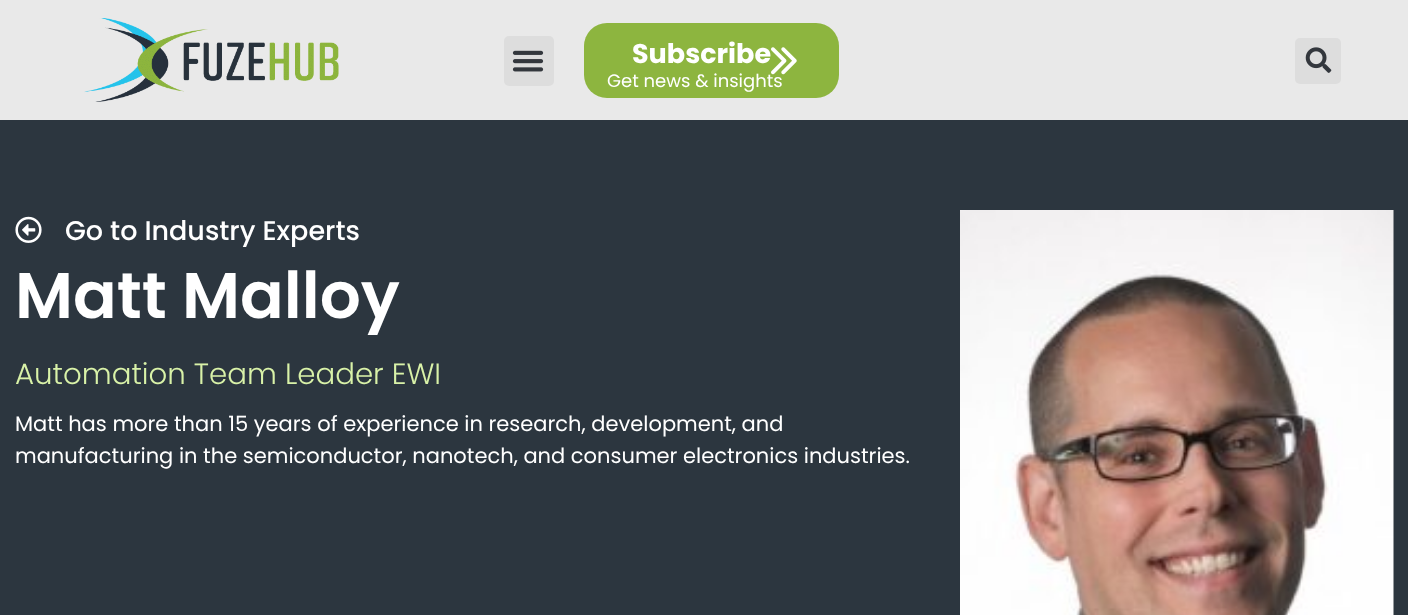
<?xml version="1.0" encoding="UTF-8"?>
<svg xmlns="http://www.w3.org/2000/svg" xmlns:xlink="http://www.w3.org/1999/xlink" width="1408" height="615">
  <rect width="100%" height="100%" fill="#e9e9e9" />
  <image x="84" y="18" width="255" height="84" xlink:href="image1.png" />
  <rect x="504" y="36" width="50" height="50" rx="5" fill="#dddddd" />
  <image x="512" y="50" width="32" height="22" xlink:href="image2.png" />
  <rect x="584" y="23" width="255" height="75" rx="23" fill="#8db53f" />
  <image x="771" y="47" width="26" height="28" xlink:href="image3.png" />
  <rect x="1295" y="38" width="46" height="46" rx="5" fill="#dddddd" />
  <image x="1305" y="47" width="27" height="26" xlink:href="image4.png" />
  <rect y="120" width="1408" height="495" fill="#2c363f" />
  <image x="15" y="216" width="27" height="27" xlink:href="image5.png" />
  <image x="960" y="210" width="434" height="405" xlink:href="image6.png" />
  <text x="632" y="63" style="font-family: Poppins; font-size: 27px; font-weight: bold; fill: #ffffff">Subscribe</text>
  <text x="607" y="87" style="font-family: Poppins; font-size: 18px; fill: #ffffff">Get news &amp; insights</text>
  <text x="65" y="240" style="font-family: Poppins; font-size: 27px; font-weight: 500; fill: #ffffff">Go to Industry Experts</text>
  <text x="15" y="318" style="font-family: Poppins; font-size: 64.5px; font-weight: 600; fill: #ffffff">Matt Malloy</text>
  <text x="15" y="384" style="font-family: Poppins; font-size: 29.25px; font-weight: 300; fill: #d9f2a8">Automation Team Leader EWI</text>
  <text x="15" y="431" style="font-family: Poppins; font-size: 21px; fill: #ffffff">Matt has more than 15 years of experience in research, development, and</text>
  <text x="15" y="463" style="font-family: Poppins; font-size: 21px; fill: #ffffff">manufacturing in the semiconductor, nanotech, and consumer electronics industries.</text>
</svg>
